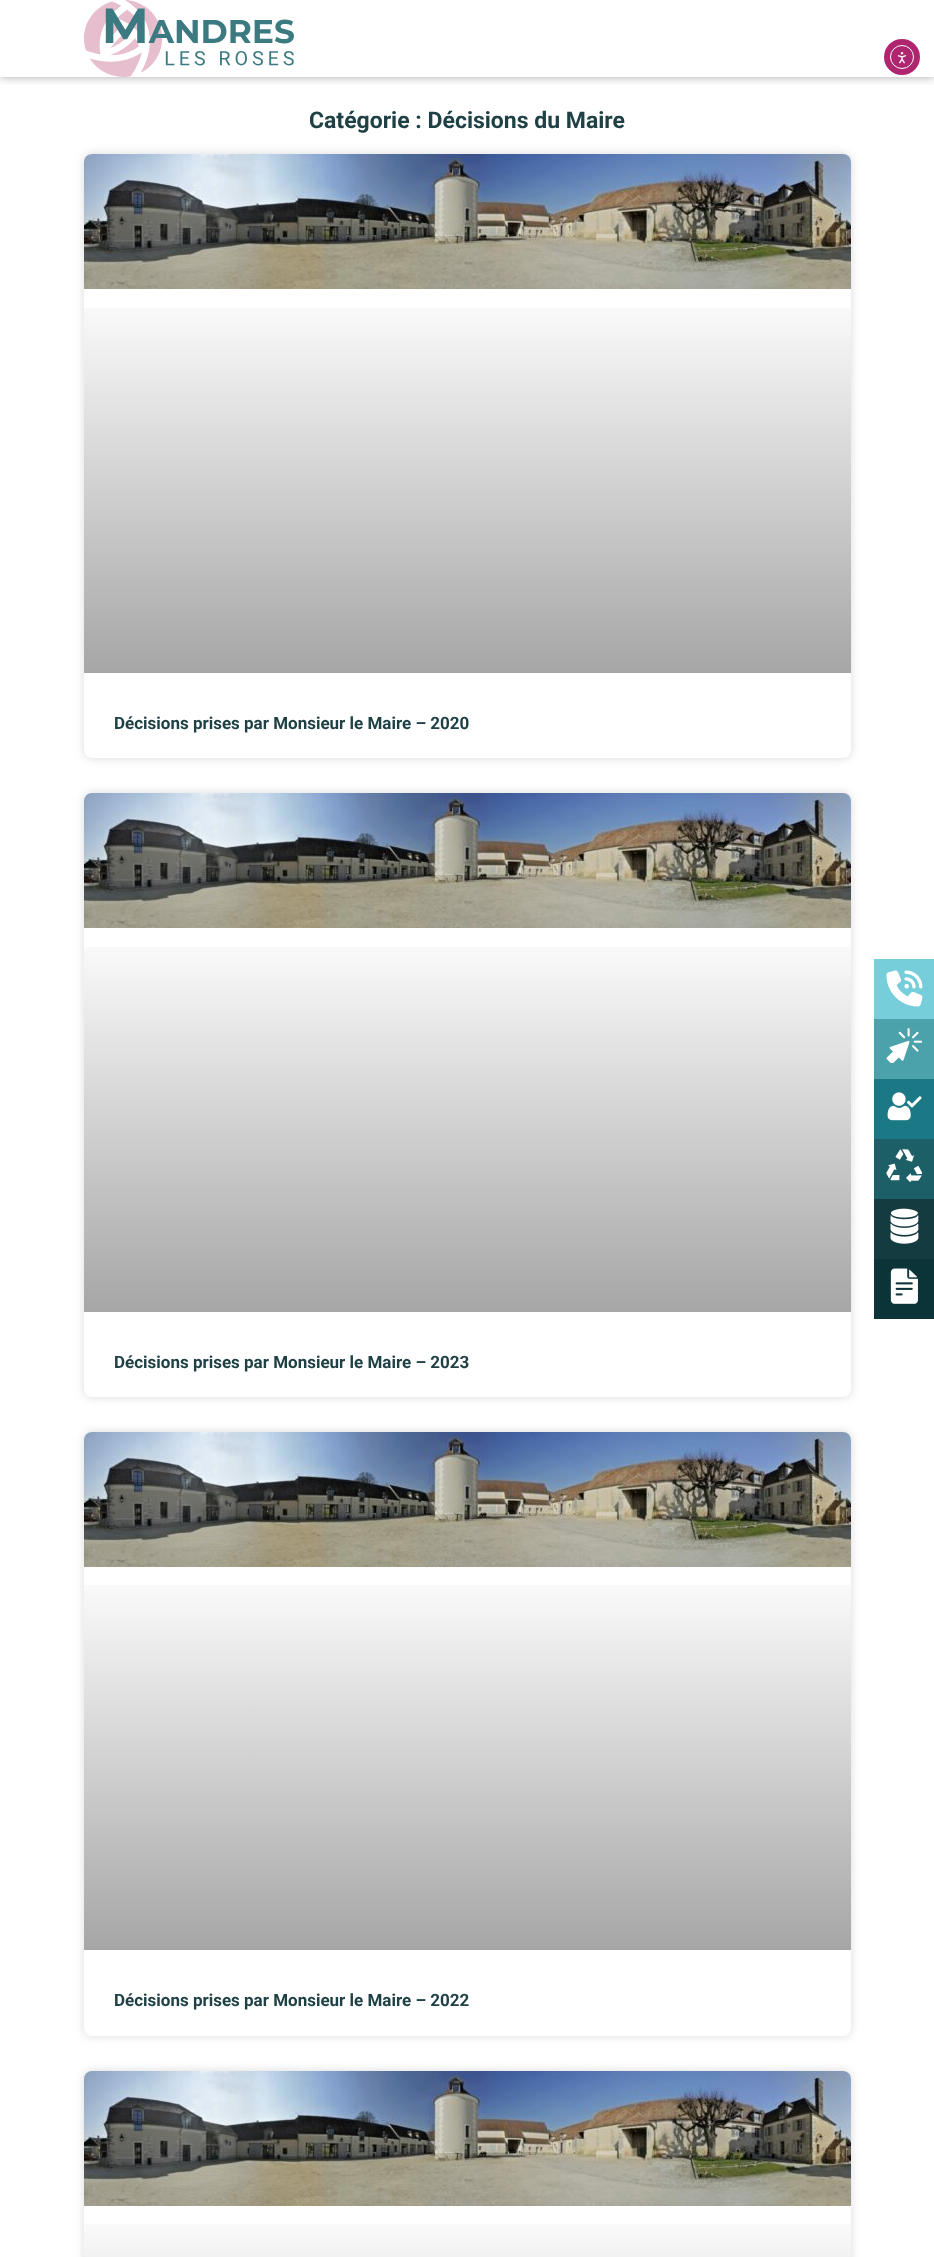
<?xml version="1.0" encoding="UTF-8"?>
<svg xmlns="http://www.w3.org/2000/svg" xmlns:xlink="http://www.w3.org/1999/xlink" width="934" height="2257">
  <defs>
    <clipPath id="clip1"><rect x="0" y="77" width="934" height="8" /></clipPath>
    <linearGradient id="g1" gradientUnits="userSpaceOnUse" x1="468" y1="673" x2="468" y2="154"><stop offset="0" stop-color="#000000" stop-opacity="0.35" /><stop offset="0.75" stop-color="#000000" stop-opacity="0" /></linearGradient>
    <linearGradient id="g2" gradientUnits="userSpaceOnUse" x1="468" y1="1312" x2="468" y2="793"><stop offset="0" stop-color="#000000" stop-opacity="0.35" /><stop offset="0.75" stop-color="#000000" stop-opacity="0" /></linearGradient>
    <linearGradient id="g3" gradientUnits="userSpaceOnUse" x1="468" y1="1950" x2="468" y2="1432"><stop offset="0" stop-color="#000000" stop-opacity="0.35" /><stop offset="0.75" stop-color="#000000" stop-opacity="0" /></linearGradient>
    <linearGradient id="g4" gradientUnits="userSpaceOnUse" x1="468" y1="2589" x2="468" y2="2071"><stop offset="0" stop-color="#000000" stop-opacity="0.35" /><stop offset="0.75" stop-color="#000000" stop-opacity="0" /></linearGradient>
  </defs>
  <rect width="100%" height="100%" fill="#ffffff" />
  <g clip-path="url(#clip1)">
    <rect width="934" height="77" fill="#000000" fill-opacity="0.35" filter="blur(5px)" />
  </g>
  <image x="84" y="0" width="210" height="77" xlink:href="image1.png" />
  <circle cx="902" cy="57" r="18" fill="#b0256f" />
  <circle cx="902" cy="57" r="11.5" fill="none" stroke="#ffffff" />
  <image x="897" y="52" width="10" height="12" xlink:href="image2.png" />
  <rect x="84" y="154" width="767" height="604" rx="8" fill="#000000" fill-opacity="0.15" filter="blur(5px)" />
  <rect x="84" y="154" width="767" height="604" rx="8" fill="#ffffff" />
  <image x="84" y="154" width="767" height="135" xlink:href="image3.png" />
  <rect x="84" y="308" width="767" height="365" fill="url(#g1)" />
  <rect x="84" y="793" width="767" height="604" rx="8" fill="#000000" fill-opacity="0.15" filter="blur(5px)" />
  <rect x="84" y="793" width="767" height="604" rx="8" fill="#ffffff" />
  <image x="84" y="793" width="767" height="135" xlink:href="image3.png" />
  <rect x="84" y="947" width="767" height="365" fill="url(#g2)" />
  <rect x="84" y="1432" width="767" height="604" rx="8" fill="#000000" fill-opacity="0.15" filter="blur(5px)" />
  <rect x="84" y="1432" width="767" height="604" rx="8" fill="#ffffff" />
  <image x="84" y="1432" width="767" height="135" xlink:href="image3.png" />
  <rect x="84" y="1585" width="767" height="365" fill="url(#g3)" />
  <rect x="84" y="2071" width="767" height="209" rx="8" fill="#000000" fill-opacity="0.15" filter="blur(5px)" />
  <rect x="84" y="2071" width="767" height="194" rx="8" fill="#ffffff" />
  <image x="84" y="2071" width="767" height="135" xlink:href="image3.png" />
  <rect x="84" y="2224" width="767" height="33" fill="url(#g4)" />
  <rect x="874" y="959" width="60" height="60" fill="#76cedb" />
  <image x="886" y="970" width="37" height="37" xlink:href="image4.png" />
  <rect x="874" y="1019" width="60" height="60" fill="#4ca2ab" />
  <image x="886" y="1028" width="36" height="35" xlink:href="image5.png" />
  <rect x="874" y="1079" width="60" height="60" fill="#1a7985" />
  <image x="887" y="1092" width="35" height="29" xlink:href="image6.png" />
  <rect x="874" y="1139" width="60" height="60" fill="#1d5f67" />
  <image x="886" y="1149" width="36" height="33" xlink:href="image7.png" />
  <rect x="874" y="1199" width="60" height="60" fill="#143b3f" />
  <image x="890" y="1208" width="29" height="36" xlink:href="image8.png" />
  <rect x="874" y="1259" width="60" height="60" fill="#0b3438" />
  <image x="890" y="1268" width="28" height="36" xlink:href="image9.png" />
  <text x="309" y="128" style="font-family: Roboto; font-size: 23px; font-weight: bold; fill: #1f4145">Catégorie : Décisions du Maire</text>
  <text x="114" y="729" style="font-family: Roboto; font-size: 17px; font-weight: bold; fill: #1f4145">Décisions prises par Monsieur le Maire – 2020</text>
  <text x="114" y="1368" style="font-family: Roboto; font-size: 17px; font-weight: bold; fill: #1f4145">Décisions prises par Monsieur le Maire – 2023</text>
  <text x="114" y="2006" style="font-family: Roboto; font-size: 17px; font-weight: bold; fill: #1f4145">Décisions prises par Monsieur le Maire – 2022</text>
</svg>
